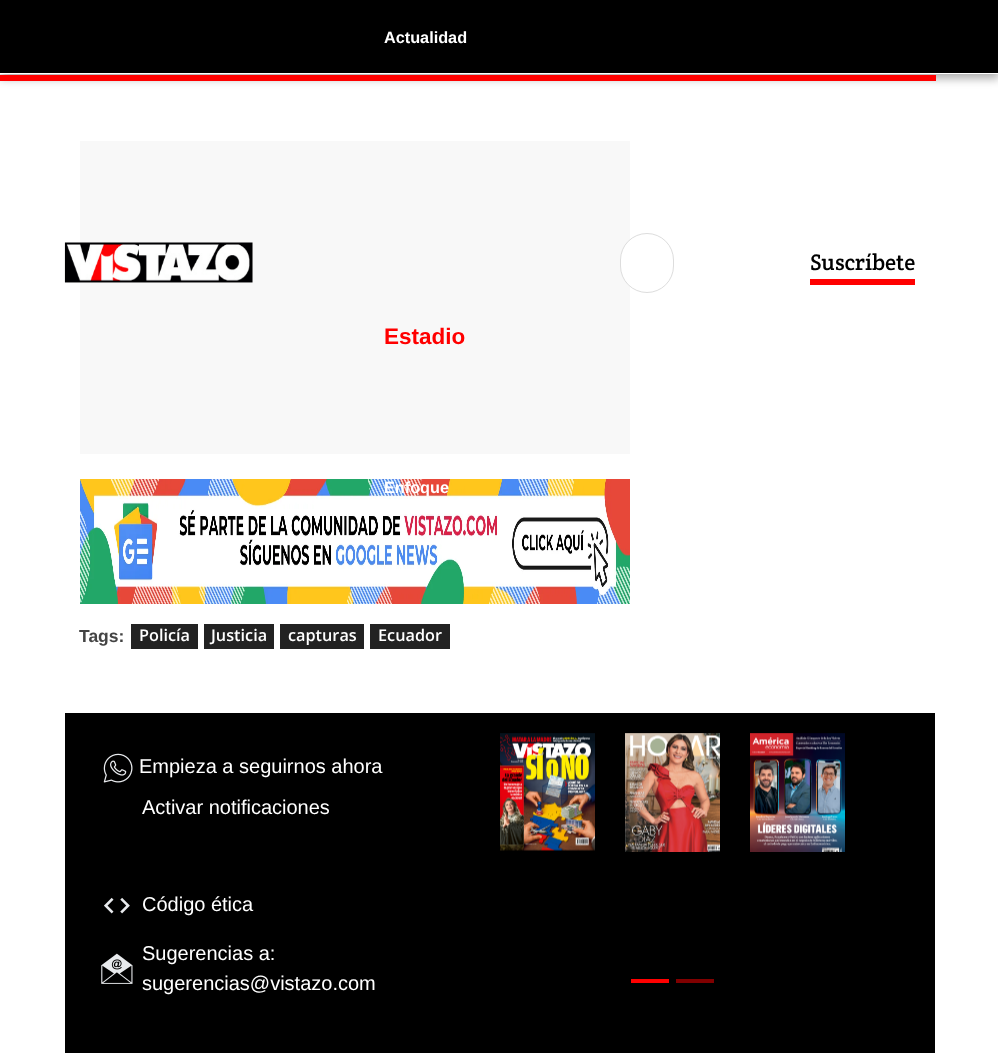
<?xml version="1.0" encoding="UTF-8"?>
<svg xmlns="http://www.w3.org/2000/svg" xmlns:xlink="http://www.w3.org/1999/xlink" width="998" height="1053">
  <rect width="100%" height="100%" fill="#ffffff" />
  <rect y="5" width="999" height="74" fill="#000000" fill-opacity="0.3" filter="blur(4px)" />
  <rect width="998" height="73" fill="#000000" />
  <rect y="73" width="998" height="1" fill="#ffffff" />
  <rect x="80" y="141" width="550" height="313" fill="#f8f8f8" />
  <image x="64" y="242" width="189" height="41" xlink:href="image1.png" />
  <rect x="620.5" y="233.5" width="53" height="59" rx="26.5" fill="#ffffff" stroke="#dddddd" />
  <rect x="810" y="279" width="105" height="6" fill="#ff0000" />
  <rect y="75" width="936" height="6" fill="#ff0000" />
  <image x="80" y="479" width="550" height="125" xlink:href="image2.png" />
  <rect x="131" y="624" width="67" height="25" fill="#222222" />
  <rect x="204" y="624" width="70" height="25" fill="#222222" />
  <rect x="280" y="624" width="84" height="25" fill="#222222" />
  <rect x="370" y="624" width="80" height="25" fill="#222222" />
  <rect x="65" y="713" width="870" height="340" fill="#000000" />
  <image x="103" y="753" width="30" height="30" xlink:href="image3.png" />
  <image x="104" y="897" width="26" height="17" xlink:href="image4.png" />
  <image x="101" y="953" width="32" height="31" xlink:href="image5.png" />
  <image x="500" y="733" width="95" height="118" xlink:href="image6.png" />
  <image x="625" y="733" width="95" height="119" xlink:href="image7.png" />
  <image x="750" y="733" width="95" height="119" xlink:href="image8.png" />
  <rect x="631" y="979" width="38" height="4" fill="#ff0000" />
  <rect x="676" y="979" width="38" height="4" fill="#800000" />
  <text x="384" y="43" style="font-family: Liberation Sans; font-size: 16.25px; font-weight: bold; fill: #ffffff">Actualidad</text>
  <text x="384" y="344" style="font-family: Liberation Sans; font-size: 22.5px; font-weight: bold; fill: #ff0000">Estadio</text>
  <text x="384" y="493" style="font-family: Liberation Sans; font-size: 16.25px; font-weight: bold; fill: #ffffff">Enfoque</text>
  <text x="810" y="270" style="font-family: Crete Round; font-size: 22.5px; fill: #000000">Suscríbete</text>
  <text x="79" y="642" style="font-family: Liberation Sans; font-size: 17.5px; font-weight: bold; fill: #444444">Tags:</text>
  <text x="139" y="641" style="font-family: Open Sans; font-size: 16.25px; font-weight: 600; fill: #ffffff">Policía</text>
  <text x="211" y="641" style="font-family: Open Sans; font-size: 16.25px; font-weight: 600; fill: #ffffff">Justicia</text>
  <text x="288" y="641" style="font-family: Open Sans; font-size: 16.25px; font-weight: 600; fill: #ffffff">capturas</text>
  <text x="378" y="641" style="font-family: Open Sans; font-size: 16.25px; font-weight: 600; fill: #ffffff">Ecuador</text>
  <text x="139" y="773" style="font-family: Liberation Sans; font-size: 20px; fill: #ffffff">Empieza a seguirnos ahora</text>
  <text x="142" y="814" style="font-family: Liberation Sans; font-size: 20px; fill: #ffffff">Activar notificaciones</text>
  <text x="142" y="911" style="font-family: Liberation Sans; font-size: 20px; fill: #ffffff">Código ética</text>
  <text x="142" y="960" style="font-family: Liberation Sans; font-size: 20px; fill: #ffffff">Sugerencias a:</text>
  <text x="142" y="990" style="font-family: Liberation Sans; font-size: 20px; fill: #ffffff">sugerencias@vistazo.com</text>
</svg>
